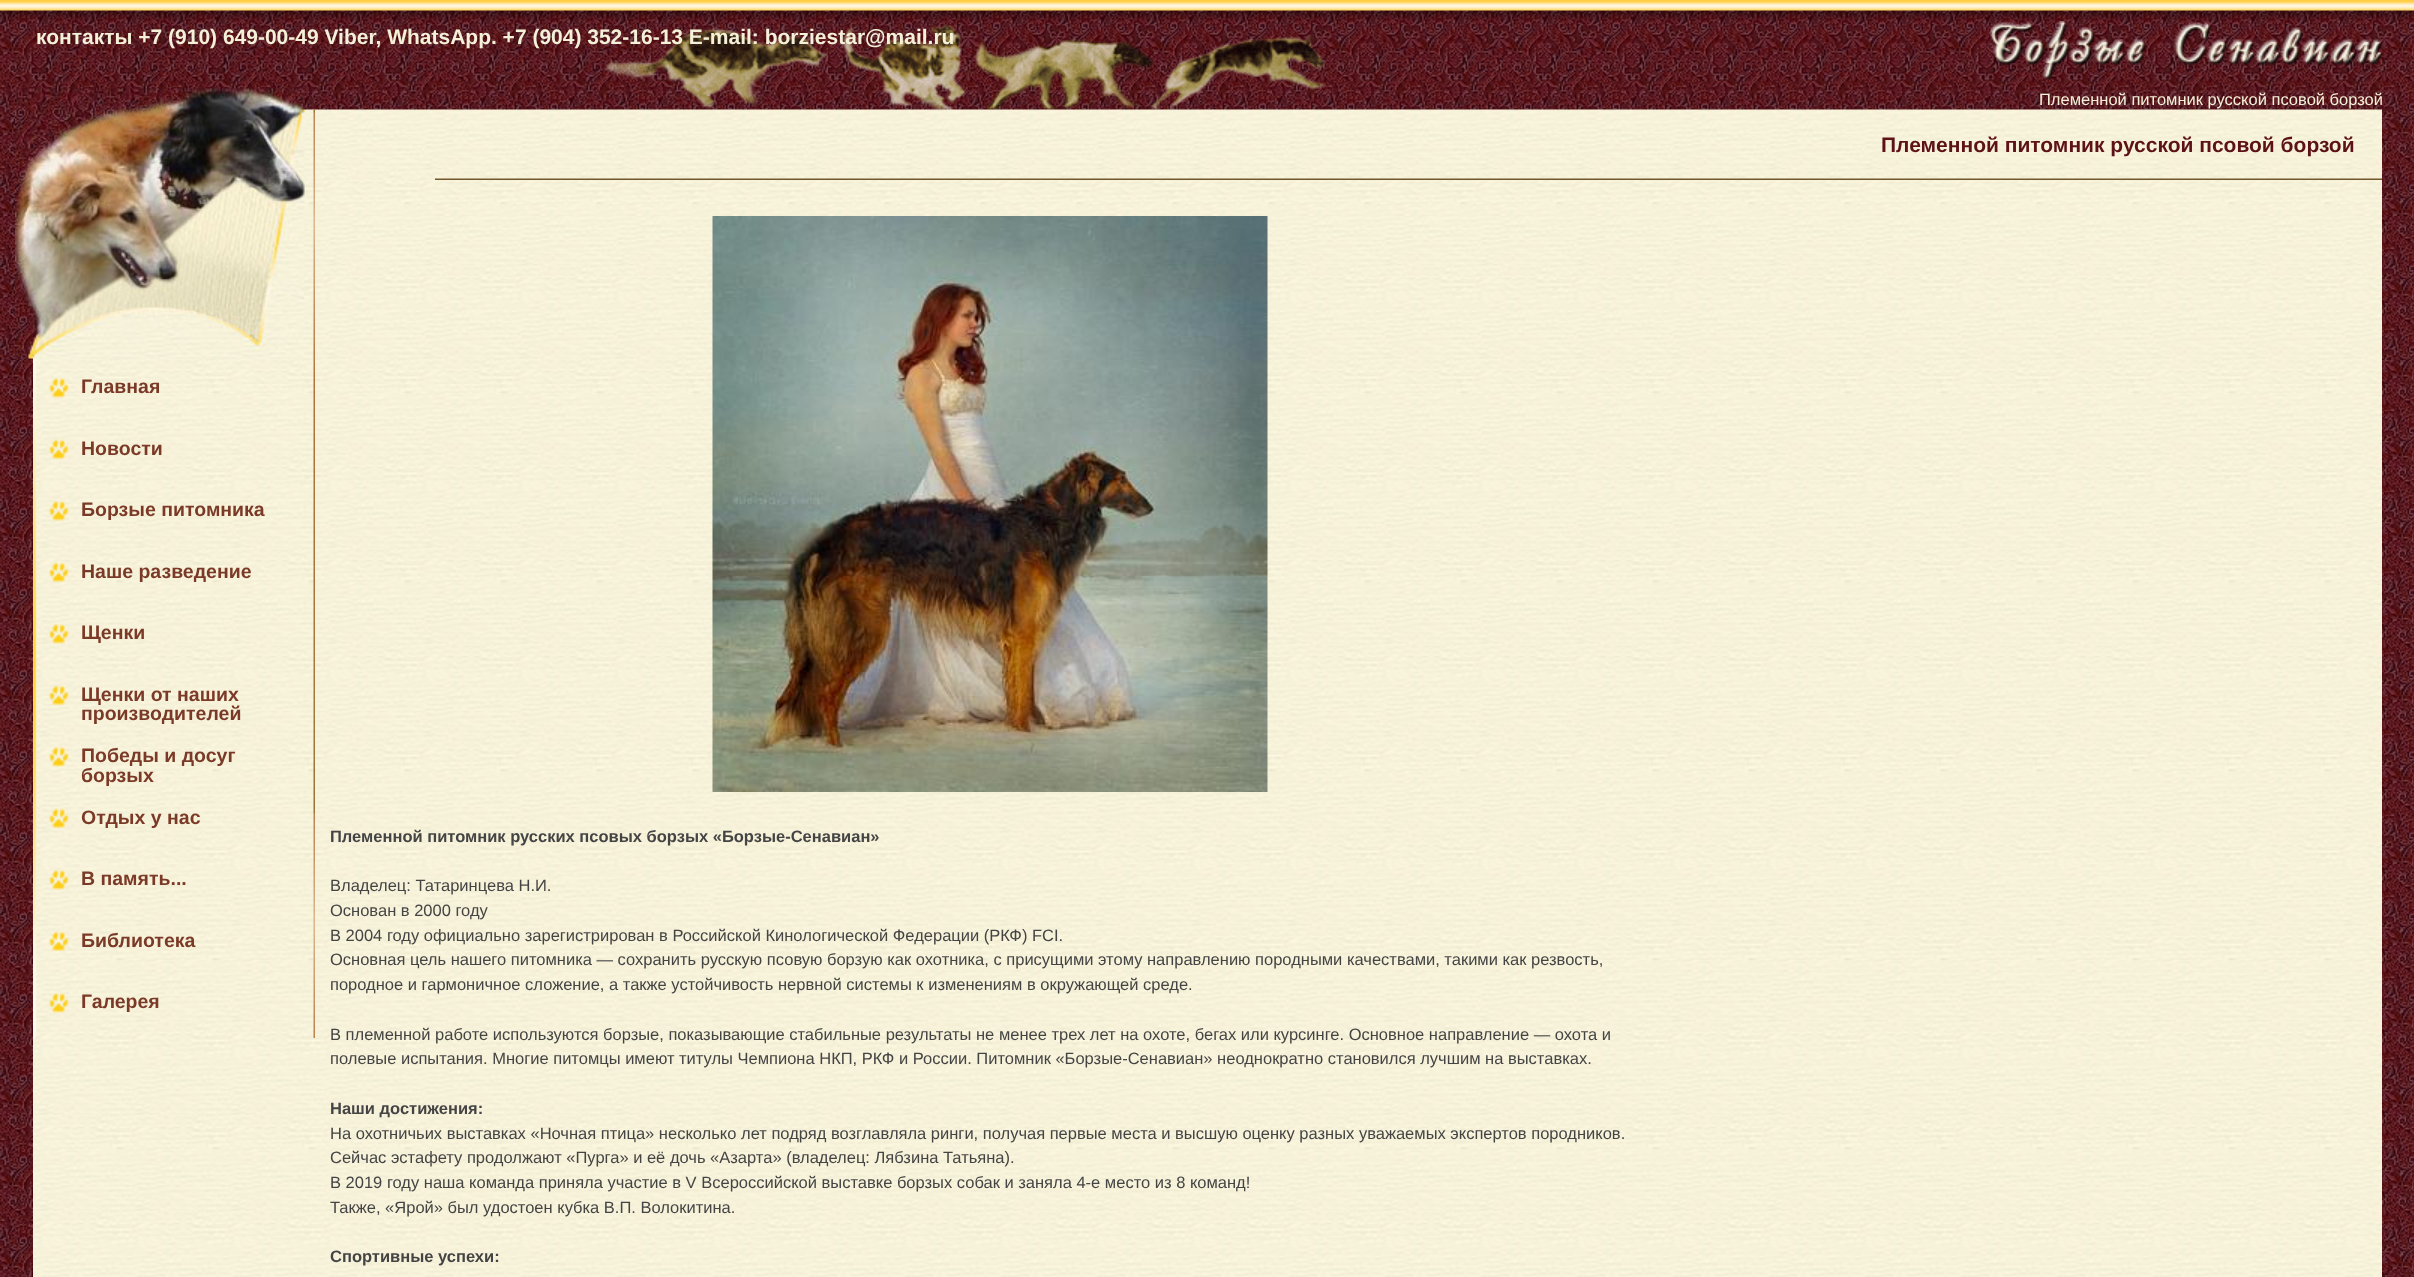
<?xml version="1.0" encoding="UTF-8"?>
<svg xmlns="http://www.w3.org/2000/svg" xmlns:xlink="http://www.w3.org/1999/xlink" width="2414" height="1277">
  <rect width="100%" height="100%" fill="#ffffff" />
  <image x="0" y="10" width="2414" height="1267" xlink:href="image1.png" />
  <image x="0" y="0" width="2414" height="21" xlink:href="image2.png" />
  <image x="604" y="23" width="722" height="87" xlink:href="image3.png" />
  <image x="1990" y="21" width="394" height="59" xlink:href="image4.png" />
  <image x="33" y="109" width="2349" height="1168" xlink:href="image6.png" />
  <image x="33" y="109" width="282" height="929" xlink:href="image8.png" />
  <image x="15" y="88" width="290" height="271" xlink:href="image5.png" />
  <image x="435" y="178" width="1947" height="2" xlink:href="image7.png" />
  <image x="49" y="378" width="20" height="20" xlink:href="image9.png" />
  <image x="49" y="439" width="20" height="20" xlink:href="image10.png" />
  <image x="49" y="501" width="20" height="20" xlink:href="image11.png" />
  <image x="49" y="562" width="20" height="20" xlink:href="image12.png" />
  <image x="49" y="624" width="20" height="20" xlink:href="image13.png" />
  <image x="49" y="685" width="20" height="20" xlink:href="image14.png" />
  <image x="49" y="747" width="20" height="20" xlink:href="image15.png" />
  <image x="49" y="808" width="20" height="20" xlink:href="image16.png" />
  <image x="49" y="870" width="20" height="20" xlink:href="image17.png" />
  <image x="49" y="931" width="20" height="20" xlink:href="image18.png" />
  <image x="49" y="993" width="20" height="20" xlink:href="image19.png" />
  <image x="712" y="216" width="556" height="576" xlink:href="image20.png" />
  <text x="36" y="44" style="font-family: Liberation Sans; font-size: 21px; font-weight: bold; fill: #f5f1d8">контакты +7 (910) 649-00-49 Viber, WhatsApp. +7 (904) 352-16-13 E-mail: borziestar@mail.ru</text>
  <text x="2039" y="105" style="font-family: Liberation Sans; font-size: 16.5px; fill: #f5f1d8">Племенной питомник русской псовой борзой</text>
  <text x="1881" y="152" style="font-family: Liberation Sans; font-size: 21px; font-weight: bold; fill: #5c1216">Племенной питомник русской псовой борзой</text>
  <text x="81" y="393" style="font-family: Liberation Sans; font-size: 19.5px; font-weight: bold; fill: #7b3a27">Главная</text>
  <text x="81" y="455" style="font-family: Liberation Sans; font-size: 19.5px; font-weight: bold; fill: #7b3a27">Новости</text>
  <text x="81" y="516" style="font-family: Liberation Sans; font-size: 19.5px; font-weight: bold; fill: #7b3a27">Борзые питомника</text>
  <text x="81" y="578" style="font-family: Liberation Sans; font-size: 19.5px; font-weight: bold; fill: #7b3a27">Наше разведение</text>
  <text x="81" y="639" style="font-family: Liberation Sans; font-size: 19.5px; font-weight: bold; fill: #7b3a27">Щенки</text>
  <text x="81" y="701" style="font-family: Liberation Sans; font-size: 19.5px; font-weight: bold; fill: #7b3a27">Щенки от наших</text>
  <text x="81" y="720" style="font-family: Liberation Sans; font-size: 19.5px; font-weight: bold; fill: #7b3a27">производителей</text>
  <text x="81" y="762" style="font-family: Liberation Sans; font-size: 19.5px; font-weight: bold; fill: #7b3a27">Победы и досуг</text>
  <text x="81" y="782" style="font-family: Liberation Sans; font-size: 19.5px; font-weight: bold; fill: #7b3a27">борзых</text>
  <text x="81" y="824" style="font-family: Liberation Sans; font-size: 19.5px; font-weight: bold; fill: #7b3a27">Отдых у нас</text>
  <text x="81" y="885" style="font-family: Liberation Sans; font-size: 19.5px; font-weight: bold; fill: #7b3a27">В память...</text>
  <text x="81" y="947" style="font-family: Liberation Sans; font-size: 19.5px; font-weight: bold; fill: #7b3a27">Библиотека</text>
  <text x="81" y="1008" style="font-family: Liberation Sans; font-size: 19.5px; font-weight: bold; fill: #7b3a27">Галерея</text>
  <text x="330" y="842" style="font-family: Liberation Sans; font-size: 16.5px; font-weight: bold; fill: #444444">Племенной питомник русских псовых борзых «Борзые-Сенавиан»</text>
  <text x="330" y="891" style="font-family: Liberation Sans; font-size: 16.5px; fill: #444444">Владелец: Татаринцева Н.И.</text>
  <text x="330" y="916" style="font-family: Liberation Sans; font-size: 16.5px; fill: #444444">Основан в 2000 году</text>
  <text x="330" y="941" style="font-family: Liberation Sans; font-size: 16.5px; fill: #444444">В 2004 году официально зарегистрирован в Российской Кинологической Федерации (РКФ) FCI.</text>
  <text x="330" y="965" style="font-family: Liberation Sans; font-size: 16.5px; fill: #444444">Основная цель нашего питомника — сохранить русскую псовую борзую как охотника, с присущими этому направлению породными качествами, такими как резвость,</text>
  <text x="330" y="990" style="font-family: Liberation Sans; font-size: 16.5px; fill: #444444">породное и гармоничное сложение, а также устойчивость нервной системы к изменениям в окружающей среде.</text>
  <text x="330" y="1040" style="font-family: Liberation Sans; font-size: 16.5px; fill: #444444">В племенной работе используются борзые, показывающие стабильные результаты не менее трех лет на охоте, бегах или курсинге. Основное направление — охота и</text>
  <text x="330" y="1064" style="font-family: Liberation Sans; font-size: 16.5px; fill: #444444">полевые испытания. Многие питомцы имеют титулы Чемпиона НКП, РКФ и России. Питомник «Борзые-Сенавиан» неоднократно становился лучшим на выставках.</text>
  <text x="330" y="1114" style="font-family: Liberation Sans; font-size: 16.5px; font-weight: bold; fill: #444444">Наши достижения:</text>
  <text x="330" y="1139" style="font-family: Liberation Sans; font-size: 16.5px; fill: #444444">На охотничьих выставках «Ночная птица» несколько лет подряд возглавляла ринги, получая первые места и высшую оценку разных уважаемых экспертов породников.</text>
  <text x="330" y="1163" style="font-family: Liberation Sans; font-size: 16.5px; fill: #444444">Сейчас эстафету продолжают «Пурга» и её дочь «Азарта» (владелец: Лябзина Татьяна).</text>
  <text x="330" y="1188" style="font-family: Liberation Sans; font-size: 16.5px; fill: #444444">В 2019 году наша команда приняла участие в V Всероссийской выставке борзых собак и заняла 4-е место из 8 команд!</text>
  <text x="330" y="1213" style="font-family: Liberation Sans; font-size: 16.5px; fill: #444444">Также, «Ярой» был удостоен кубка В.П. Волокитина.</text>
  <text x="330" y="1262" style="font-family: Liberation Sans; font-size: 16.5px; font-weight: bold; fill: #444444">Спортивные успехи:</text>
</svg>
